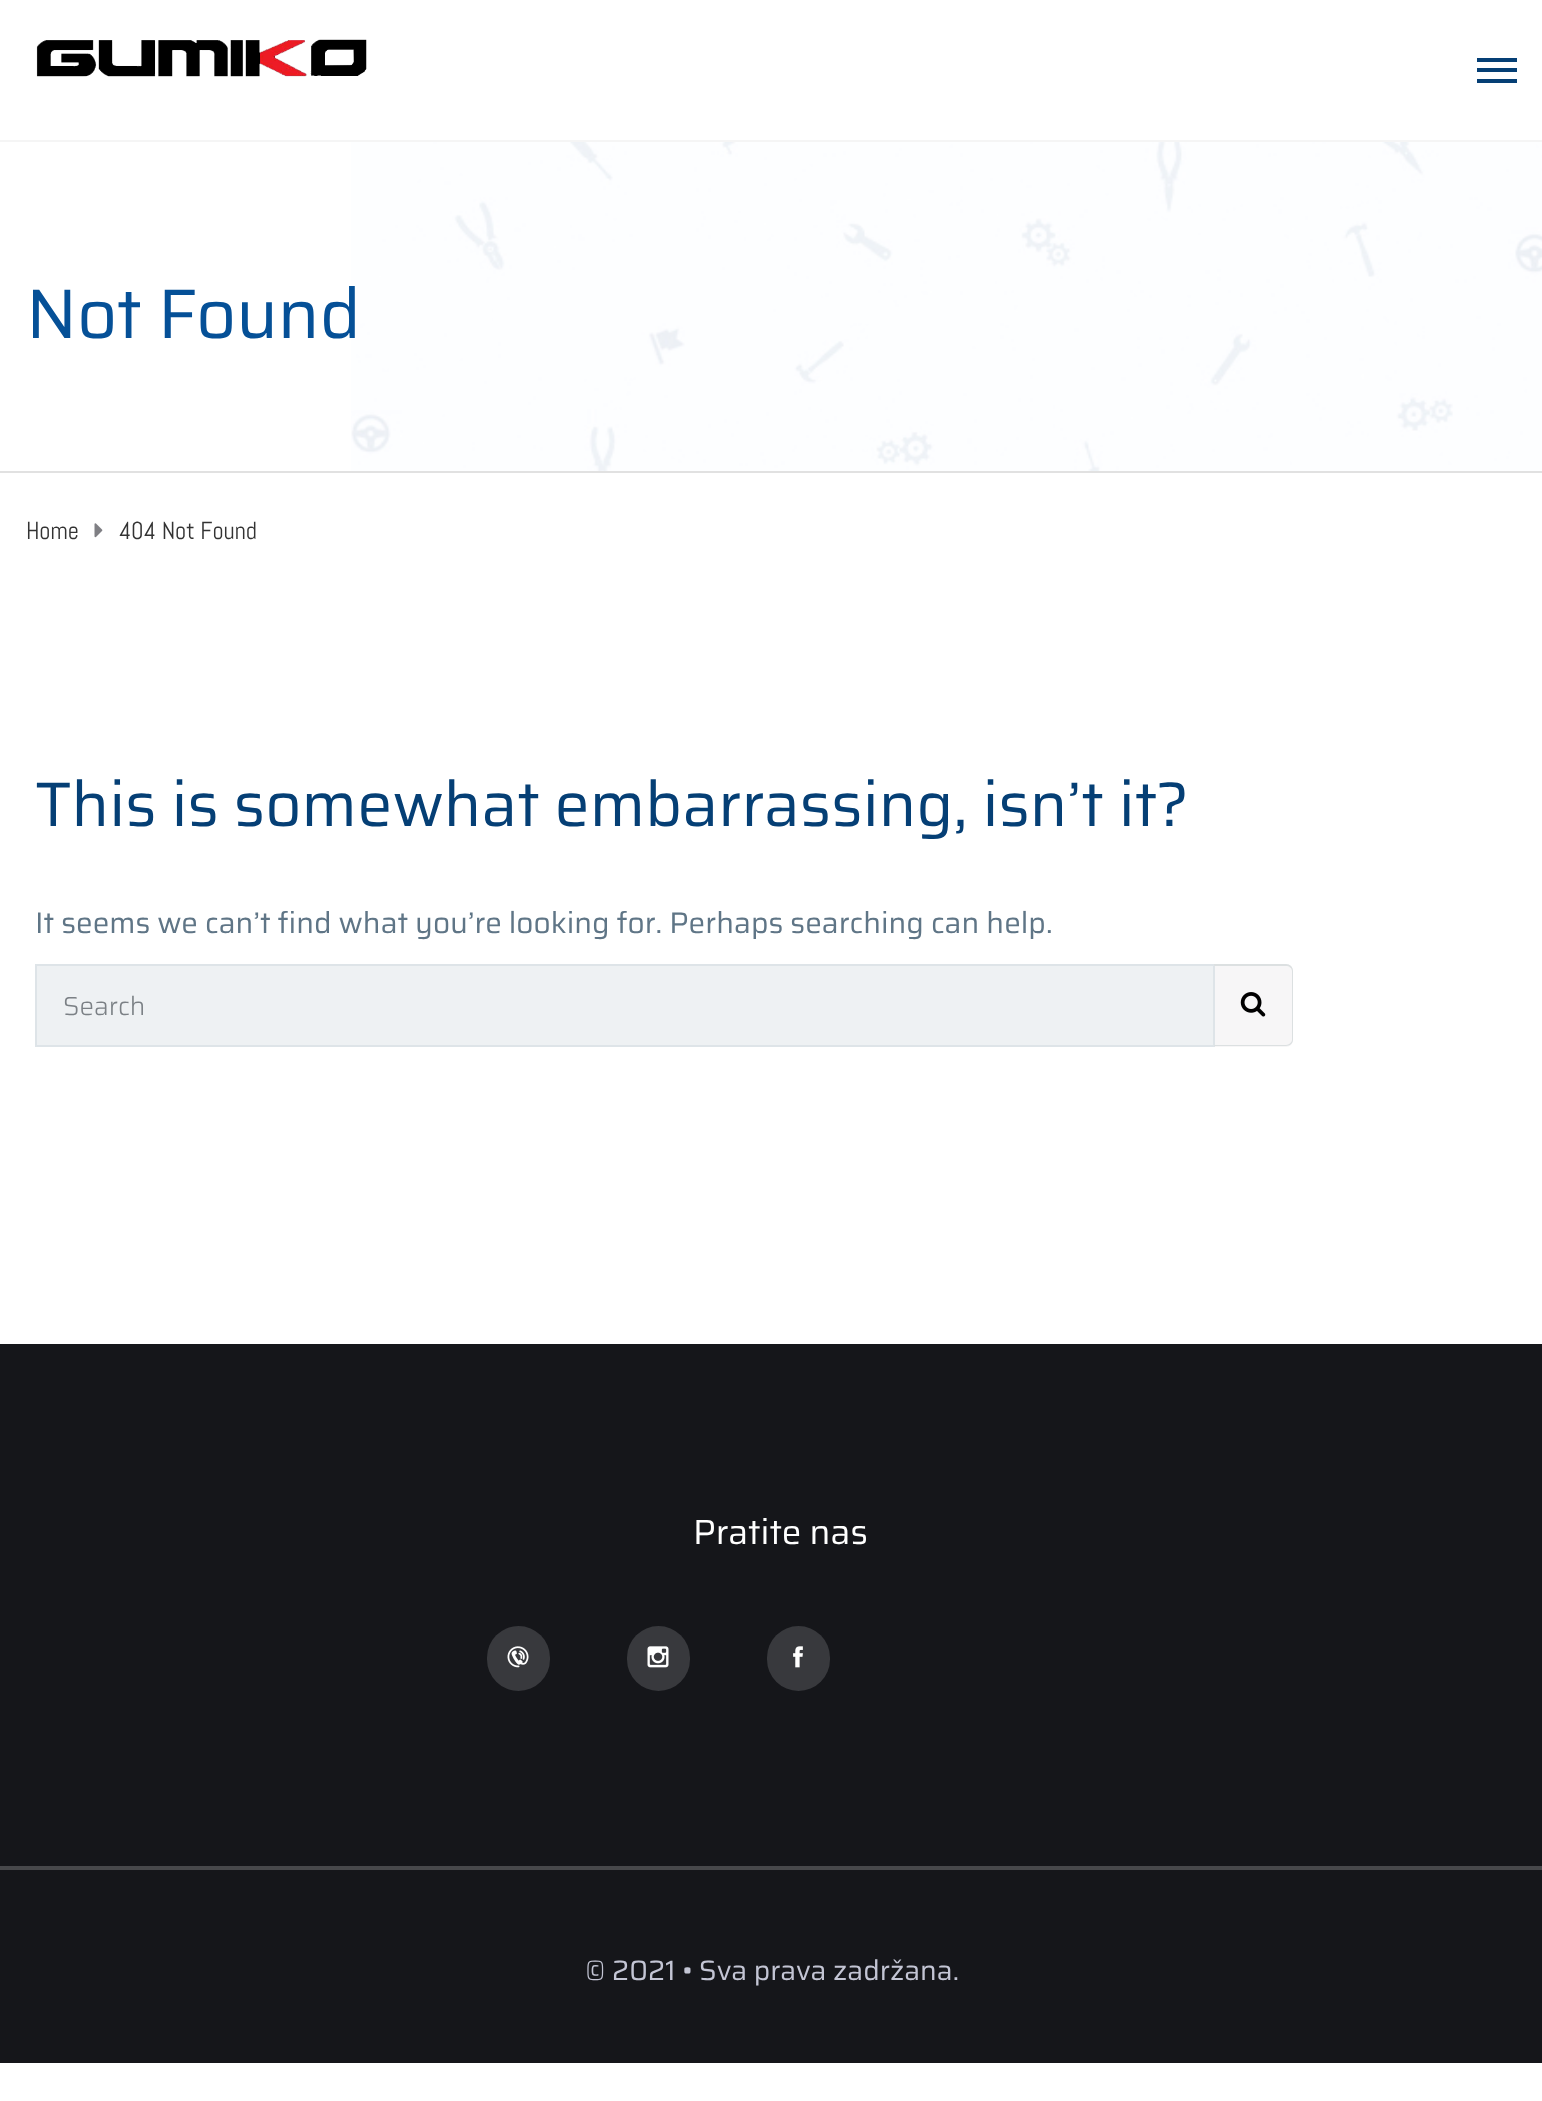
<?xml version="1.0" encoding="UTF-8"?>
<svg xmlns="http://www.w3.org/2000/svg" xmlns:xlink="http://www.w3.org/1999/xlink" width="1542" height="2101">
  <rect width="100%" height="100%" fill="#ffffff" />
  <rect y="140" width="1542" height="2" fill="#f5f5f5" />
  <image x="36" y="39" width="331" height="38" xlink:href="image1.png" />
  <rect x="1477" y="58" width="40" height="4" fill="#053f75" />
  <rect x="1477" y="68" width="40" height="4" fill="#053f75" />
  <rect x="1477" y="79" width="40" height="4" fill="#053f75" />
  <image x="351" y="142" width="1191" height="329" xlink:href="image2.png" />
  <rect y="471" width="1542" height="2" fill="#e1e1e1" />
  <image x="94" y="523" width="9" height="15" xlink:href="image3.png" />
  <rect x="36" y="965" width="1178" height="81" fill="#eef1f3" stroke="#dee4e8" stroke-width="2" />
  <path d="M 1215 964 h 71 c 4 0 7 3 7 7 v 69 c 0 4 -3 7 -7 7 h -71 z" fill="#f7f6f7" />
  <path d="M 1214 964 h 72 c 4 0 7 3 7 7 v 69 c 0 3 -3 6 -7 6 h -72 z m 0 2 h 72 c 3 0 6 2 6 5 v 69 c 0 2 -3 5 -6 5 h -72 z" fill="#dce0e1" fill-rule="evenodd" />
  <image x="1240" y="992" width="26" height="25" xlink:href="image4.png" />
  <rect y="1344" width="1542" height="522" fill="#15161a" />
  <rect x="487" y="1626" width="63" height="65" rx="31.5" fill="#38393d" />
  <image x="507" y="1646" width="22" height="22" xlink:href="image5.png" />
  <rect x="627" y="1626" width="63" height="65" rx="31.5" fill="#38393d" />
  <image x="647" y="1646" width="22" height="22" xlink:href="image6.png" />
  <rect x="767" y="1626" width="63" height="65" rx="31.5" fill="#38393d" />
  <image x="793" y="1646" width="10" height="22" xlink:href="image7.png" />
  <rect y="1870" width="1542" height="193" fill="#15161a" />
  <rect y="1866" width="1542" height="4" fill="#47484b" />
  <text x="26" y="338" style="font-family: Saira; font-size: 70px; letter-spacing: -0.25px; fill: #055097">Not Found</text>
  <text x="26" y="539" style="font-family: Abel; font-size: 24.5px; fill: #333333">Home</text>
  <text x="119" y="539" style="font-family: Abel; font-size: 24.5px; fill: #333333">404 Not Found</text>
  <text x="35" y="826" style="font-family: Saira; font-size: 63px; fill: #053f75">This is somewhat embarrassing, isn’t it?</text>
  <text x="35" y="933" style="font-family: Saira; font-size: 29.75px; fill: #5f7586">It seems we can’t find what you’re looking for. Perhaps searching can help.</text>
  <text x="63" y="1015" style="font-family: Saira; font-size: 26px; font-weight: 300; fill: #7b8085">Search</text>
  <text x="693" y="1544" style="font-family: Saira; font-size: 35px; fill: #ffffff">Pratite nas</text>
  <text x="585" y="1980" style="font-family: Saira; font-size: 28px; fill: #c3c5d4">© 2021 • Sva prava zadržana.</text>
</svg>
